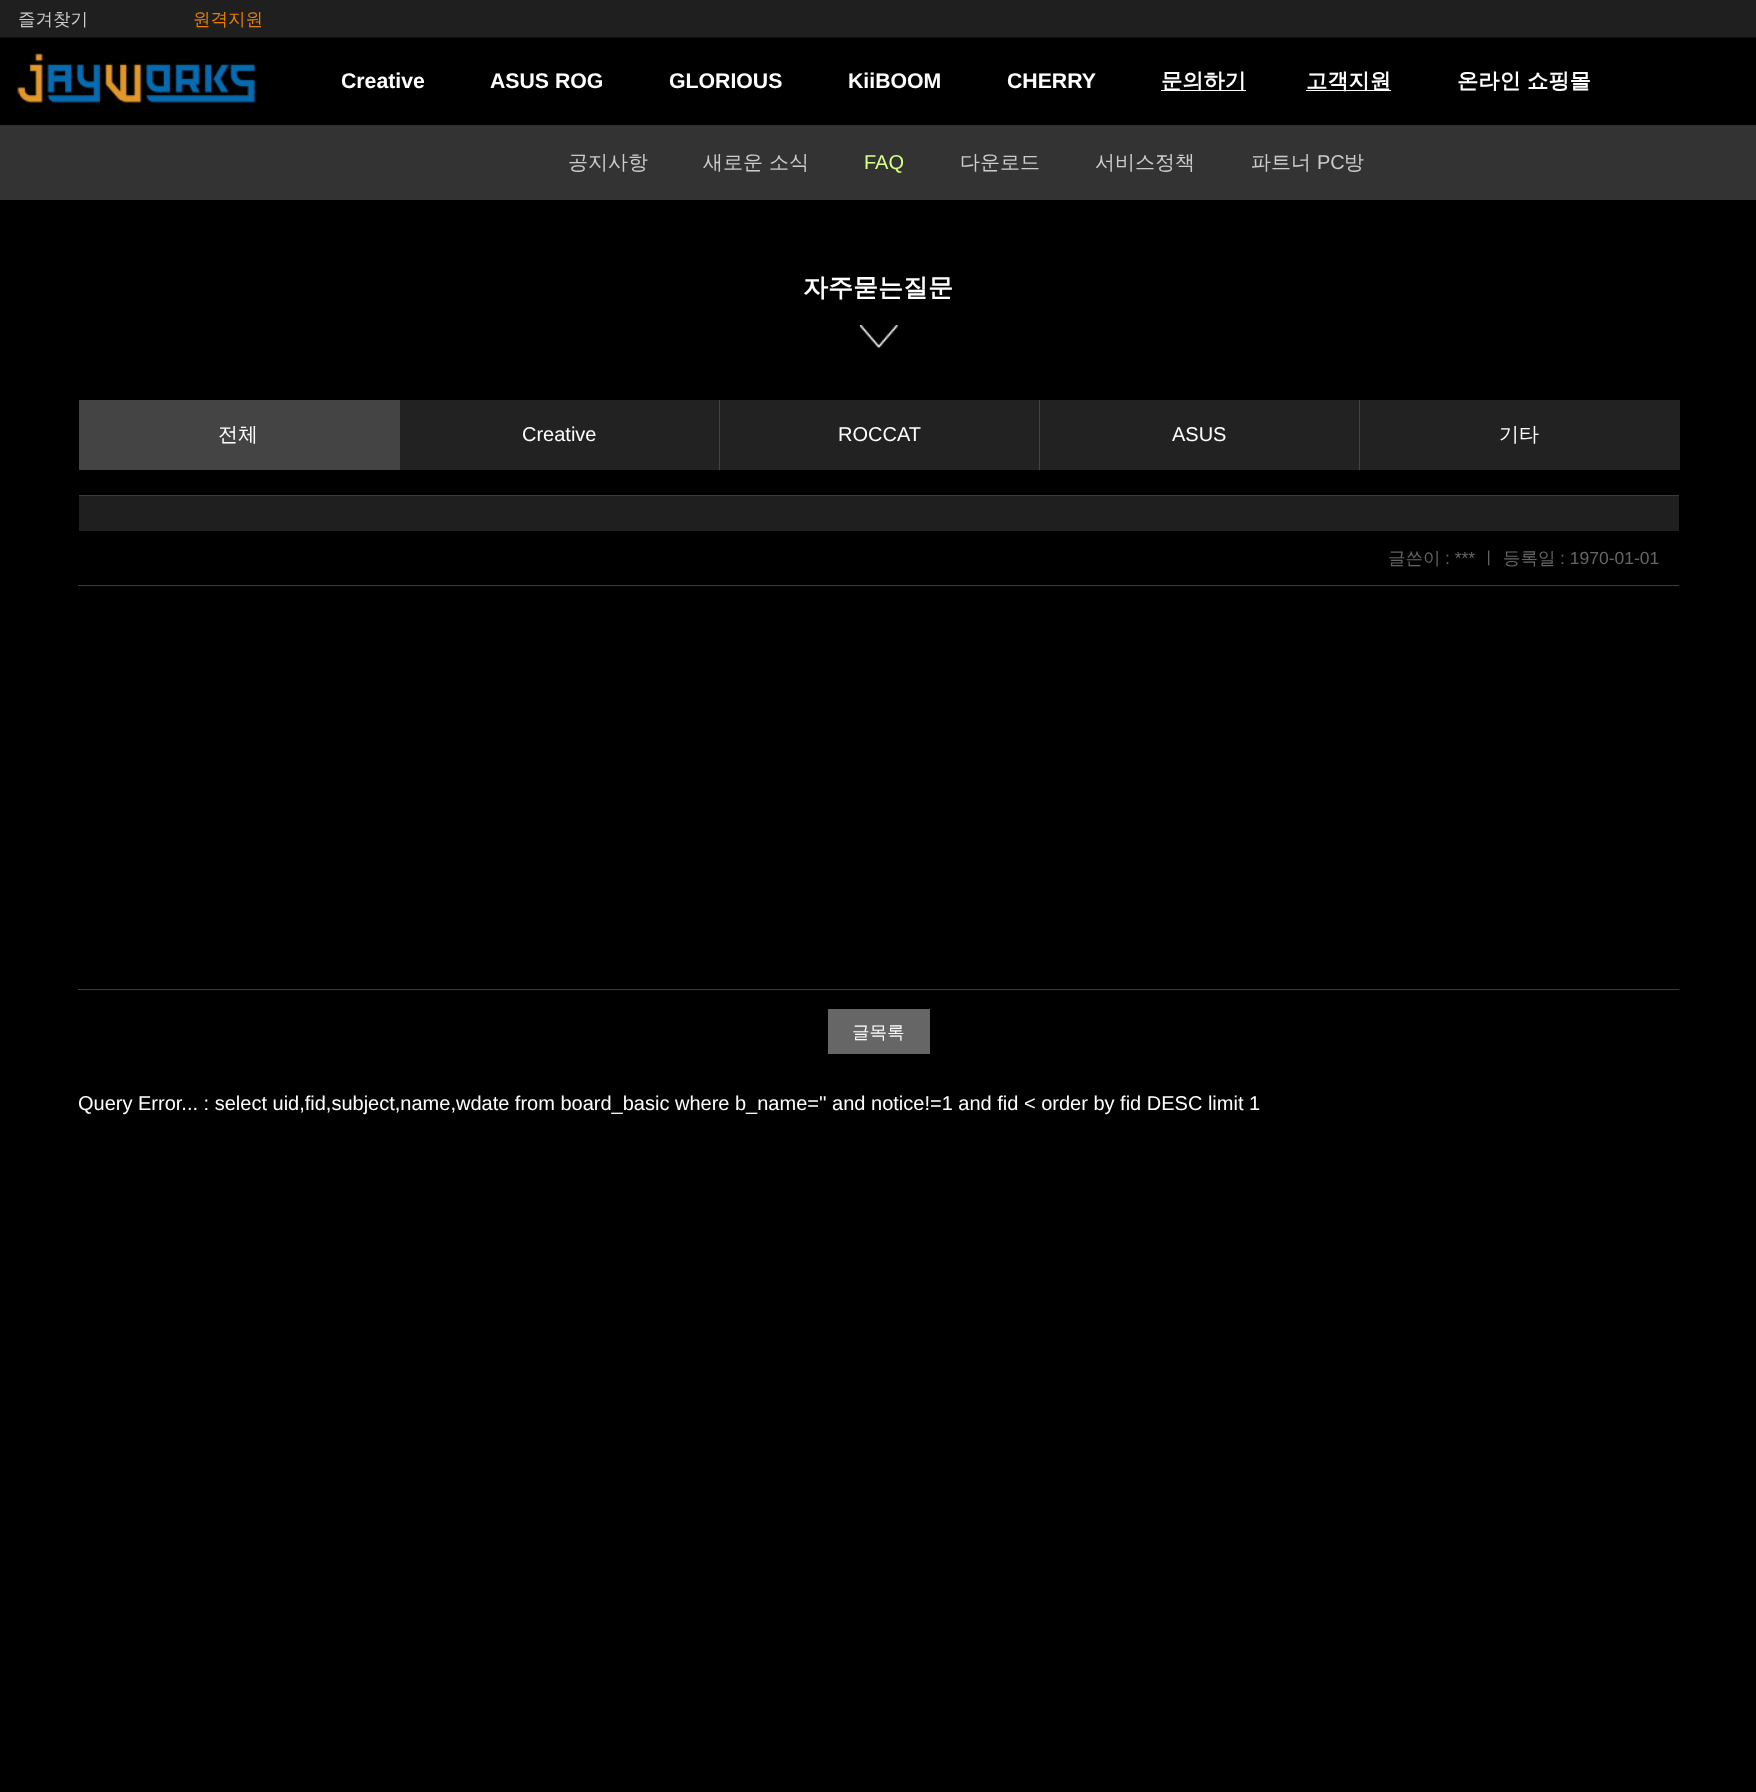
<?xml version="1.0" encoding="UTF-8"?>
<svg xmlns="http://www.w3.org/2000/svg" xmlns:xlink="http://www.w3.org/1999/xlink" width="1756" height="1792">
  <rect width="100%" height="100%" fill="#000000" />
  <image x="0" y="0" width="1756" height="200" xlink:href="image1.png" />
  <image x="17" y="53" width="238" height="50" xlink:href="image2.png" />
  <rect x="1306" y="90" width="85" height="1" fill="#ffffff" />
  <rect x="1161" y="90" width="85" height="1" fill="#ffffff" />
  <image x="860" y="325" width="38" height="23" xlink:href="image3.png" />
  <rect x="79" y="400" width="321" height="70" fill="#444444" />
  <rect x="400" y="400" width="319" height="70" fill="#222222" />
  <rect x="720" y="400" width="319" height="70" fill="#222222" />
  <rect x="719" y="400" width="1" height="70" fill="#444444" />
  <rect x="1040" y="400" width="319" height="70" fill="#222222" />
  <rect x="1039" y="400" width="1" height="70" fill="#444444" />
  <rect x="1360" y="400" width="320" height="70" fill="#222222" />
  <rect x="1359" y="400" width="1" height="70" fill="#444444" />
  <rect x="79" y="495" width="1600" height="1" fill="#3c3c3c" />
  <rect x="79" y="496" width="1600" height="35" fill="#1f1f1f" />
  <rect x="78" y="585" width="1601" height="1" fill="#3c3c3c" />
  <rect x="78" y="989" width="1601" height="1" fill="#3c3c3c" />
  <rect x="828" y="1009" width="102" height="45" fill="#666666" />
  <text x="18" y="25" style="font-family: WenQuanYi Zen Hei; font-size: 17.5px; font-weight: 500; fill: #cccccc">즐겨찾기</text>
  <text x="193" y="25" style="font-family: WenQuanYi Zen Hei; font-size: 17.5px; font-weight: 500; fill: #e77f05">원격지원</text>
  <text x="341" y="88" style="font-family: Liberation Sans; font-size: 21.25px; font-weight: bold; fill: #ffffff">Creative</text>
  <text x="1306" y="88" style="font-family: WenQuanYi Zen Hei; font-size: 21.25px; font-weight: bold; fill: #ffffff">고객지원</text>
  <text x="568" y="169" style="font-family: WenQuanYi Zen Hei; font-size: 20px; font-weight: 500; fill: #cccccc">공지사항</text>
  <text x="703" y="169" style="font-family: WenQuanYi Zen Hei; font-size: 20px; font-weight: 500; fill: #cccccc">새로운 소식</text>
  <text x="864" y="169" style="font-family: Liberation Sans; font-size: 20px; fill: #d7ff8b">FAQ</text>
  <text x="960" y="169" style="font-family: WenQuanYi Zen Hei; font-size: 20px; font-weight: 500; fill: #cccccc">다운로드</text>
  <text x="1095" y="169" style="font-family: WenQuanYi Zen Hei; font-size: 20px; font-weight: 500; fill: #cccccc">서비스정책</text>
  <text x="1251" y="169" style="font-family: WenQuanYi Zen Hei; font-size: 20px; font-weight: 500; fill: #cccccc">파트너</text>
  <text x="1317" y="169" style="font-family: Liberation Sans; font-size: 20px; fill: #cccccc">PC</text>
  <text x="1344" y="169" style="font-family: WenQuanYi Zen Hei; font-size: 20px; font-weight: 500; fill: #cccccc">방</text>
  <text x="490" y="88" style="font-family: Liberation Sans; font-size: 21.25px; font-weight: bold; fill: #ffffff">ASUS ROG</text>
  <text x="669" y="88" style="font-family: Liberation Sans; font-size: 21.25px; font-weight: bold; fill: #ffffff">GLORIOUS</text>
  <text x="848" y="88" style="font-family: Liberation Sans; font-size: 21.25px; font-weight: bold; fill: #ffffff">KiiBOOM</text>
  <text x="1007" y="88" style="font-family: Liberation Sans; font-size: 21.25px; font-weight: bold; fill: #ffffff">CHERRY</text>
  <text x="1161" y="88" style="font-family: WenQuanYi Zen Hei; font-size: 21.25px; font-weight: bold; fill: #ffffff">문의하기</text>
  <text x="1457" y="88" style="font-family: WenQuanYi Zen Hei; font-size: 21.25px; font-weight: bold; fill: #ffffff">온라인 쇼핑몰</text>
  <text x="803" y="296" style="font-family: WenQuanYi Zen Hei; font-size: 25px; font-weight: bold; fill: #ffffff">자주묻는질문</text>
  <text x="218" y="441" style="font-family: WenQuanYi Zen Hei; font-size: 20px; font-weight: 500; fill: #ffffff">전체</text>
  <text x="522" y="441" style="font-family: Liberation Sans; font-size: 20px; fill: #ffffff">Creative</text>
  <text x="838" y="441" style="font-family: Liberation Sans; font-size: 20px; fill: #ffffff">ROCCAT</text>
  <text x="1172" y="441" style="font-family: Liberation Sans; font-size: 20px; fill: #ffffff">ASUS</text>
  <text x="1499" y="441" style="font-family: WenQuanYi Zen Hei; font-size: 20px; font-weight: 500; fill: #ffffff">기타</text>
  <text x="1388" y="564" style="font-family: WenQuanYi Zen Hei; font-size: 17.5px; font-weight: 500; fill: #666666">글쓴이</text>
  <text x="1445" y="564" style="font-family: Liberation Sans; font-size: 17.5px; fill: #666666">: ***</text>
  <text x="1480" y="564" style="font-family: WenQuanYi Zen Hei; font-size: 17.5px; font-weight: 500; fill: #666666">ㅣ</text>
  <text x="1503" y="564" style="font-family: WenQuanYi Zen Hei; font-size: 17.5px; font-weight: 500; fill: #666666">등록일</text>
  <text x="1560" y="564" style="font-family: Liberation Sans; font-size: 17.5px; fill: #666666">: 1970-01-01</text>
  <text x="852" y="1038" style="font-family: WenQuanYi Zen Hei; font-size: 17.5px; font-weight: 500; fill: #ffffff">글목록</text>
  <text x="78" y="1110" style="font-family: Liberation Sans; font-size: 20px; fill: #ffffff">Query Error... : select uid,fid,subject,name,wdate from board_basic where b_name='' and notice!=1 and fid &lt; order by fid DESC limit 1</text>
</svg>
